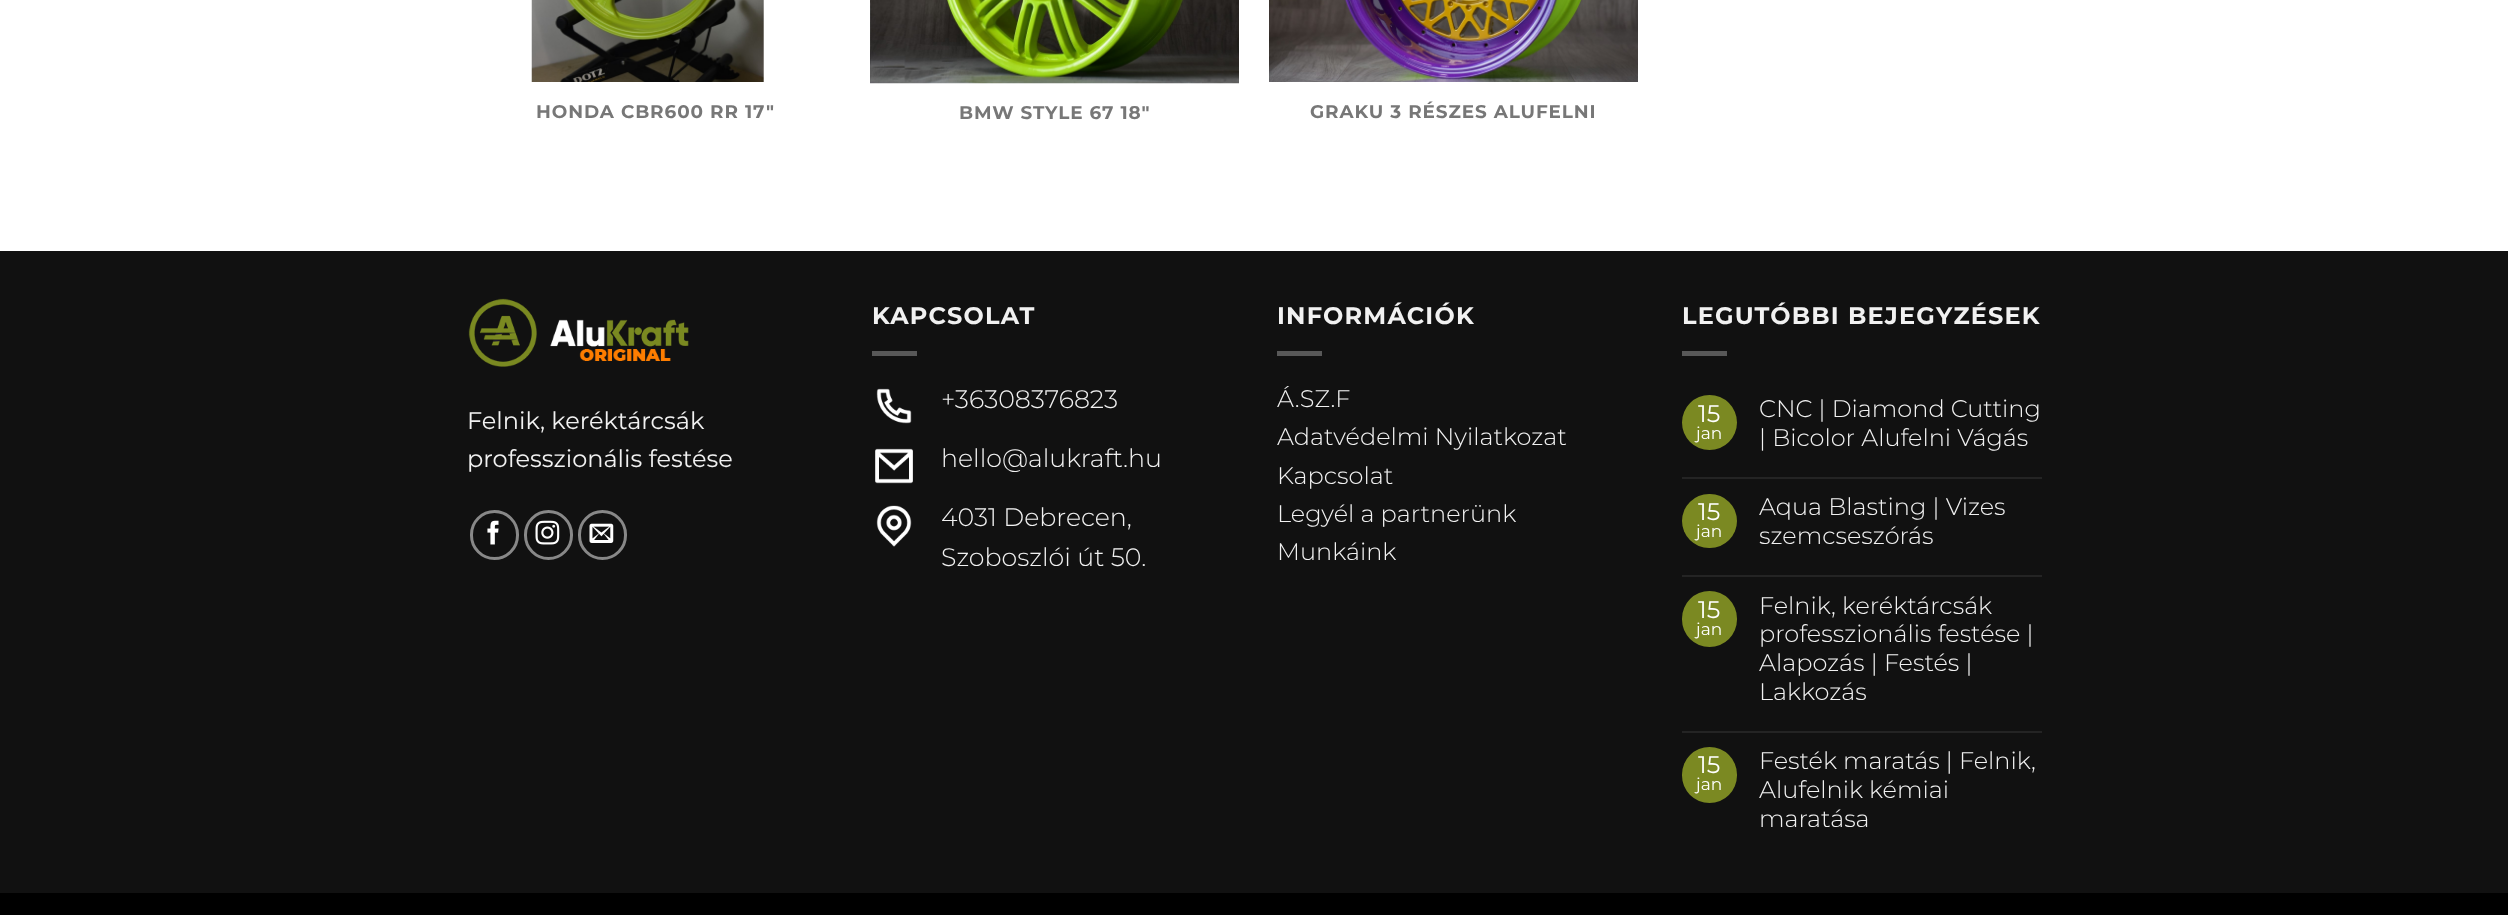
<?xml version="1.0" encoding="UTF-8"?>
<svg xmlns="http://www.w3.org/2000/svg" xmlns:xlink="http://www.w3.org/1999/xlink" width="2508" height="915">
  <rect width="100%" height="100%" fill="#ffffff" />
  <image x="531" y="0" width="233" height="82" xlink:href="image1.png" />
  <image x="870" y="0" width="369" height="84" xlink:href="image2.png" />
  <image x="1269" y="0" width="369" height="82" xlink:href="image3.png" />
  <rect y="251" width="2508" height="642" fill="#111111" />
  <image x="468" y="298" width="221" height="69" xlink:href="image4.png" />
  <rect x="471.5" y="511.5" width="46" height="47" rx="23" fill="none" stroke="#888888" stroke-width="3" />
  <image x="487" y="520" width="12" height="25" xlink:href="image5.png" />
  <rect x="525.5" y="511.5" width="46" height="47" rx="23" fill="none" stroke="#888888" stroke-width="3" />
  <image x="535" y="520" width="25" height="25" xlink:href="image6.png" />
  <rect x="579.5" y="511.5" width="46" height="47" rx="23" fill="none" stroke="#888888" stroke-width="3" />
  <image x="589" y="523" width="25" height="20" xlink:href="image7.png" />
  <rect x="872" y="351" width="45" height="5" fill="#585858" />
  <image x="876" y="388" width="36" height="36" xlink:href="image8.png" />
  <image x="875" y="448" width="38" height="36" xlink:href="image9.png" />
  <image x="876" y="505" width="36" height="42" xlink:href="image10.png" />
  <rect x="1277" y="351" width="45" height="5" fill="#585858" />
  <rect x="1682" y="351" width="45" height="5" fill="#585858" />
  <circle cx="1709.5" cy="422.5" r="27.5" fill="#7b8922" />
  <rect x="1682" y="477" width="360" height="2" fill="#242424" />
  <rect x="1682" y="494" width="55" height="54" rx="27" fill="#7b8922" />
  <rect x="1682" y="575" width="360" height="2" fill="#242424" />
  <rect x="1682" y="591" width="55" height="56" rx="27.5" fill="#7b8922" />
  <rect x="1682" y="731" width="360" height="2" fill="#242424" />
  <rect x="1682" y="747" width="55" height="56" rx="27.5" fill="#7b8922" />
  <rect y="893" width="2508" height="22" fill="#000000" />
  <text x="536" y="118" style="font-family: Montserrat; font-size: 18.4px; font-weight: bold; letter-spacing: 0.9px; fill: #777777">HONDA CBR600 RR 17″</text>
  <text x="959" y="119" style="font-family: Montserrat; font-size: 18.4px; font-weight: bold; letter-spacing: 0.9px; fill: #777777">BMW STYLE 67 18″</text>
  <text x="1310" y="118" style="font-family: Montserrat; font-size: 18.4px; font-weight: bold; letter-spacing: 0.9px; fill: #777777">GRAKU 3 RÉSZES ALUFELNI</text>
  <text x="467" y="429" style="font-family: Montserrat; font-size: 24px; fill: #f1f1f1">Felnik, keréktárcsák</text>
  <text x="467" y="467" style="font-family: Montserrat; font-size: 24px; fill: #f1f1f1">professzionális festése</text>
  <text x="872" y="324" style="font-family: Montserrat; font-size: 24px; font-weight: bold; letter-spacing: 1.2px; fill: #f1f1f1">KAPCSOLAT</text>
  <text x="941" y="408" style="font-family: Montserrat; font-size: 25.25px; font-weight: 300; fill: #f1f1f1">+36308376823</text>
  <text x="941" y="467" style="font-family: Montserrat; font-size: 25.25px; font-weight: 300; fill: #f1f1f1">hello@alukraft.hu</text>
  <text x="941" y="526" style="font-family: Montserrat; font-size: 25.25px; font-weight: 300; fill: #f1f1f1">4031 Debrecen,</text>
  <text x="941" y="566" style="font-family: Montserrat; font-size: 25.25px; font-weight: 300; fill: #f1f1f1">Szoboszlói út 50.</text>
  <text x="1277" y="324" style="font-family: Montserrat; font-size: 24px; font-weight: bold; letter-spacing: 1.2px; fill: #f1f1f1">INFORMÁCIÓK</text>
  <text x="1277" y="407" style="font-family: Montserrat; font-size: 24px; font-weight: 300; fill: #f1f1f1">Á.SZ.F</text>
  <text x="1277" y="445" style="font-family: Montserrat; font-size: 24px; font-weight: 300; fill: #f1f1f1">Adatvédelmi Nyilatkozat</text>
  <text x="1277" y="484" style="font-family: Montserrat; font-size: 24px; font-weight: 300; fill: #f1f1f1">Kapcsolat</text>
  <text x="1277" y="522" style="font-family: Montserrat; font-size: 24px; font-weight: 300; fill: #f1f1f1">Legyél a partnerünk</text>
  <text x="1277" y="560" style="font-family: Montserrat; font-size: 24px; font-weight: 300; fill: #f1f1f1">Munkáink</text>
  <text x="1682" y="324" style="font-family: Montserrat; font-size: 24px; font-weight: bold; letter-spacing: 1.2px; fill: #f1f1f1">LEGUTÓBBI BEJEGYZÉSEK</text>
  <text x="1698" y="422" style="font-family: Montserrat; font-size: 24px; fill: #ffffff">15</text>
  <text x="1696" y="439" style="font-family: Montserrat; font-size: 17px; fill: #ffffff">jan</text>
  <text x="1759" y="417" style="font-family: Montserrat; font-size: 24px; font-weight: 300; fill: #f1f1f1">CNC | Diamond Cutting</text>
  <text x="1759" y="446" style="font-family: Montserrat; font-size: 24px; font-weight: 300; fill: #f1f1f1">| Bicolor Alufelni Vágás</text>
  <text x="1698" y="520" style="font-family: Montserrat; font-size: 24px; fill: #ffffff">15</text>
  <text x="1696" y="537" style="font-family: Montserrat; font-size: 17px; fill: #ffffff">jan</text>
  <text x="1759" y="515" style="font-family: Montserrat; font-size: 24px; font-weight: 300; fill: #f1f1f1">Aqua Blasting | Vizes</text>
  <text x="1759" y="544" style="font-family: Montserrat; font-size: 24px; font-weight: 300; fill: #f1f1f1">szemcseszórás</text>
  <text x="1698" y="618" style="font-family: Montserrat; font-size: 24px; fill: #ffffff">15</text>
  <text x="1696" y="635" style="font-family: Montserrat; font-size: 17px; fill: #ffffff">jan</text>
  <text x="1759" y="614" style="font-family: Montserrat; font-size: 24px; font-weight: 300; fill: #f1f1f1">Felnik, keréktárcsák</text>
  <text x="1759" y="642" style="font-family: Montserrat; font-size: 24px; font-weight: 300; fill: #f1f1f1">professzionális festése |</text>
  <text x="1759" y="671" style="font-family: Montserrat; font-size: 24px; font-weight: 300; fill: #f1f1f1">Alapozás | Festés |</text>
  <text x="1759" y="700" style="font-family: Montserrat; font-size: 24px; font-weight: 300; fill: #f1f1f1">Lakkozás</text>
  <text x="1698" y="773" style="font-family: Montserrat; font-size: 24px; fill: #ffffff">15</text>
  <text x="1696" y="790" style="font-family: Montserrat; font-size: 17px; fill: #ffffff">jan</text>
  <text x="1759" y="769" style="font-family: Montserrat; font-size: 24px; font-weight: 300; fill: #f1f1f1">Festék maratás | Felnik,</text>
  <text x="1759" y="798" style="font-family: Montserrat; font-size: 24px; font-weight: 300; fill: #f1f1f1">Alufelnik kémiai</text>
  <text x="1759" y="827" style="font-family: Montserrat; font-size: 24px; font-weight: 300; fill: #f1f1f1">maratása</text>
</svg>
